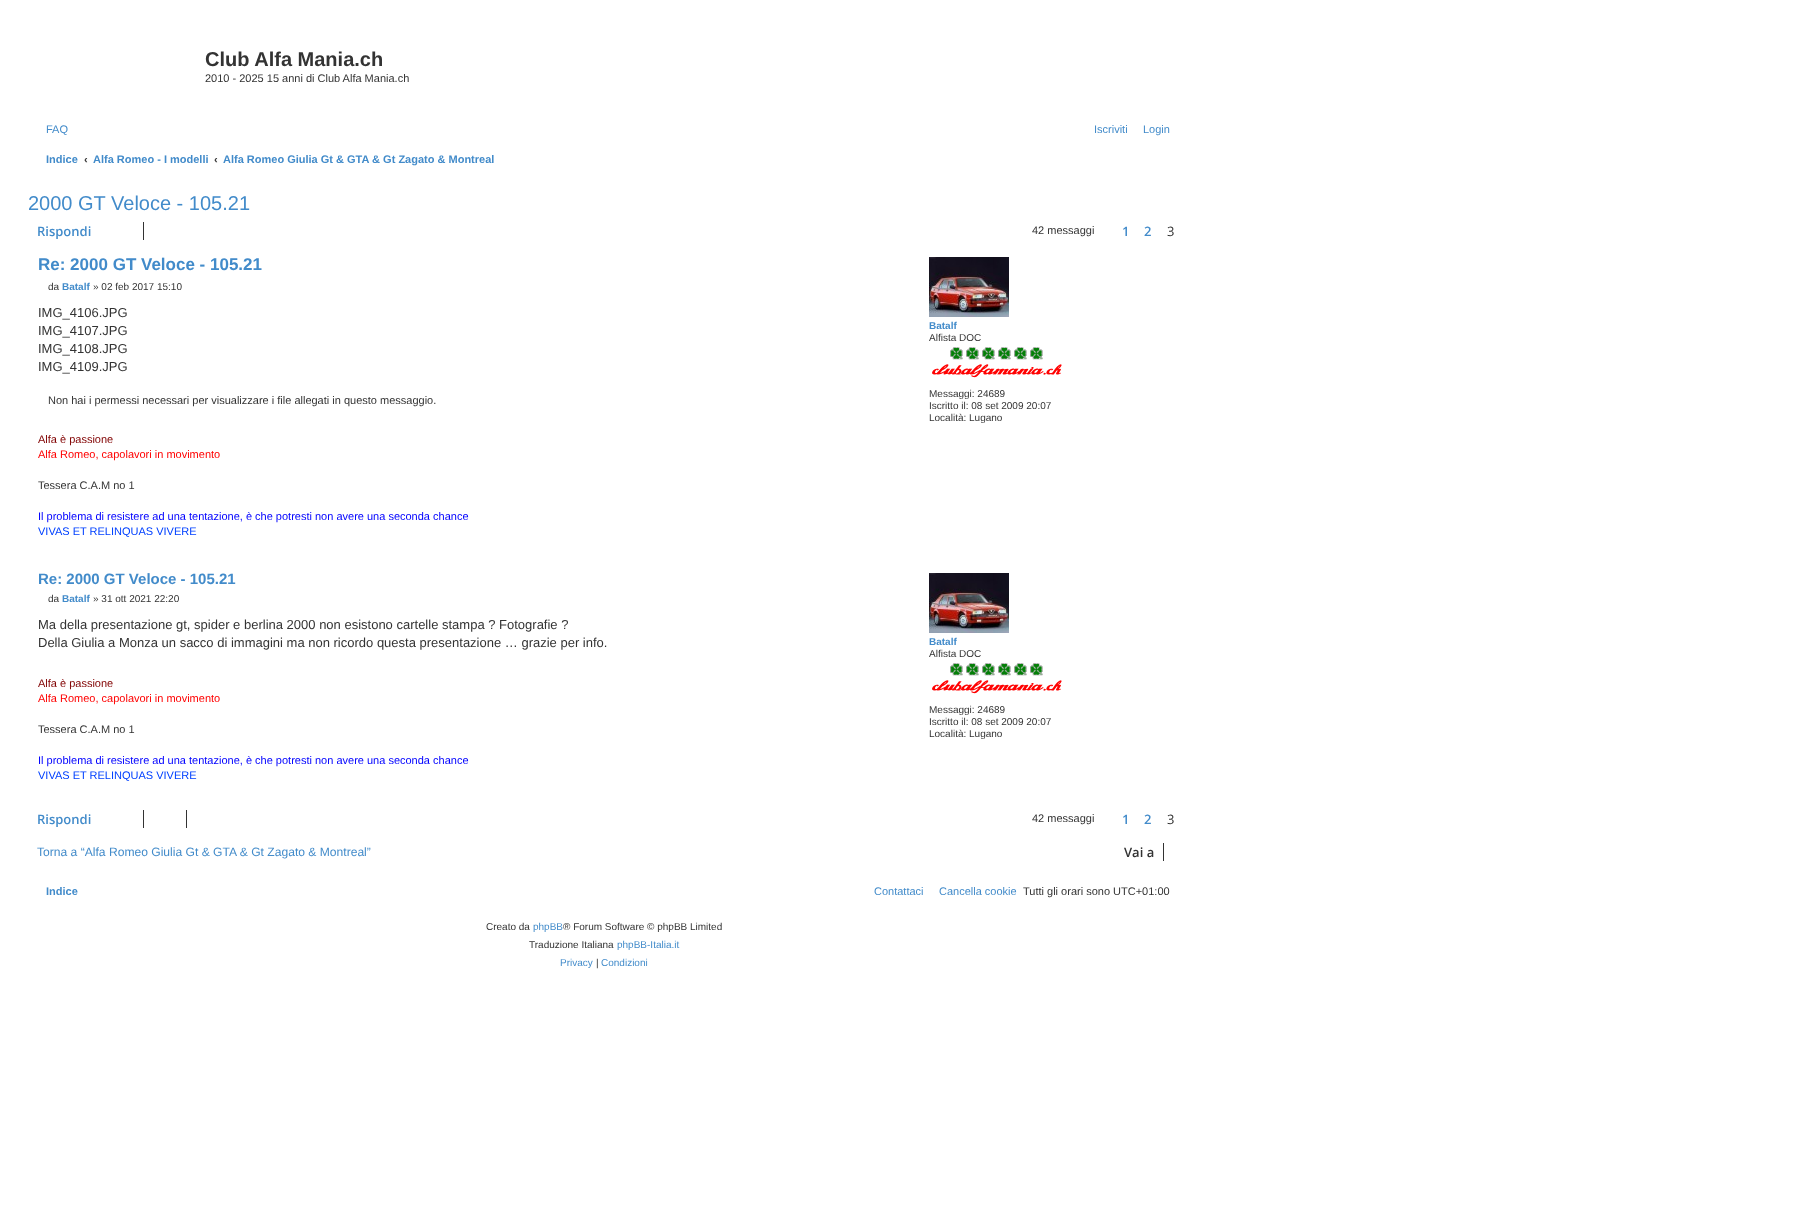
<?xml version="1.0" encoding="UTF-8"?>
<svg xmlns="http://www.w3.org/2000/svg" xmlns:xlink="http://www.w3.org/1999/xlink" width="1797" height="1211">
  <rect width="100%" height="100%" fill="#ffffff" />
  <rect x="143" y="222" width="1" height="18" fill="#333333" />
  <image x="929" y="257" width="80" height="60" xlink:href="image1.png" />
  <image x="932" y="347" width="130" height="31" xlink:href="image2.png" />
  <image x="929" y="573" width="80" height="60" xlink:href="image1.png" />
  <image x="932" y="663" width="130" height="31" xlink:href="image2.png" />
  <rect x="143" y="810" width="1" height="18" fill="#333333" />
  <rect x="186" y="810" width="1" height="18" fill="#333333" />
  <rect x="1163" y="843" width="1" height="18" fill="#333333" />
  <text x="205" y="66" style="font-family: Liberation Sans; font-size: 20px; font-weight: bold; fill: #333333">Club Alfa Mania.ch</text>
  <text x="205" y="82" style="font-family: Liberation Sans; font-size: 11px; fill: #333333">2010 - 2025 15 anni di Club Alfa Mania.ch</text>
  <text x="46" y="133" style="font-family: Liberation Sans; font-size: 11px; fill: #428bca">FAQ</text>
  <text x="1094" y="133" style="font-family: Liberation Sans; font-size: 11px; fill: #428bca">Iscriviti</text>
  <text x="1143" y="133" style="font-family: Liberation Sans; font-size: 11px; fill: #428bca">Login</text>
  <text x="46" y="163" style="font-family: Liberation Sans; font-size: 11px; font-weight: bold; fill: #428bca">Indice</text>
  <text x="84" y="163" style="font-family: Liberation Sans; font-size: 11px; font-weight: bold; fill: #333333">‹</text>
  <text x="93" y="163" style="font-family: Liberation Sans; font-size: 11px; font-weight: bold; fill: #428bca">Alfa Romeo - I modelli</text>
  <text x="214" y="163" style="font-family: Liberation Sans; font-size: 11px; font-weight: bold; fill: #333333">‹</text>
  <text x="223" y="163" style="font-family: Liberation Sans; font-size: 11px; font-weight: bold; fill: #428bca">Alfa Romeo Giulia Gt &amp; GTA &amp; Gt Zagato &amp; Montreal</text>
  <text x="28" y="210" style="font-family: Liberation Sans; font-size: 20px; fill: #428bca">2000 GT Veloce - 105.21</text>
  <text x="37" y="236" style="font-family: Open Sans; font-size: 13px; font-weight: 600; fill: #428bca">Rispondi</text>
  <text x="1032" y="234" style="font-family: Liberation Sans; font-size: 11px; fill: #333333">42 messaggi</text>
  <text x="1122" y="236" style="font-family: Open Sans; font-size: 13px; font-weight: 600; fill: #428bca">1</text>
  <text x="1144" y="236" style="font-family: Open Sans; font-size: 13px; font-weight: 600; fill: #428bca">2</text>
  <text x="1167" y="236" style="font-family: Open Sans; font-size: 13px; fill: #333333">3</text>
  <text x="38" y="270" style="font-family: Liberation Sans; font-size: 17px; font-weight: bold; fill: #428bca">Re: 2000 GT Veloce - 105.21</text>
  <text x="48" y="290" style="font-family: Liberation Sans; font-size: 10px; fill: #333333">da</text>
  <text x="62" y="290" style="font-family: Liberation Sans; font-size: 10px; font-weight: bold; fill: #428bca">Batalf</text>
  <text x="93" y="290" style="font-family: Liberation Sans; font-size: 10px; fill: #333333">» 02 feb 2017 15:10</text>
  <text x="38" y="317" style="font-family: Liberation Sans; font-size: 13px; fill: #333333">IMG_4106.JPG</text>
  <text x="38" y="335" style="font-family: Liberation Sans; font-size: 13px; fill: #333333">IMG_4107.JPG</text>
  <text x="38" y="353" style="font-family: Liberation Sans; font-size: 13px; fill: #333333">IMG_4108.JPG</text>
  <text x="38" y="371" style="font-family: Liberation Sans; font-size: 13px; fill: #333333">IMG_4109.JPG</text>
  <text x="48" y="404" style="font-family: Liberation Sans; font-size: 11px; fill: #333333">Non hai i permessi necessari per visualizzare i file allegati in questo messaggio.</text>
  <text x="38" y="443" style="font-family: Liberation Sans; font-size: 11px; fill: #800000">Alfa è passione</text>
  <text x="38" y="458" style="font-family: Liberation Sans; font-size: 11px; fill: #ff0000">Alfa Romeo, capolavori in movimento</text>
  <text x="38" y="489" style="font-family: Liberation Sans; font-size: 11px; fill: #333333">Tessera C.A.M no 1</text>
  <text x="38" y="520" style="font-family: Liberation Sans; font-size: 11px; fill: #0000ff">Il problema di resistere ad una tentazione, è che potresti non avere una seconda chance</text>
  <text x="38" y="535" style="font-family: Liberation Sans; font-size: 11px; fill: #0040ff">VIVAS ET RELINQUAS VIVERE</text>
  <text x="929" y="329" style="font-family: Liberation Sans; font-size: 10px; font-weight: bold; fill: #428bca">Batalf</text>
  <text x="929" y="341" style="font-family: Liberation Sans; font-size: 10px; fill: #333333">Alfista DOC</text>
  <text x="929" y="397" style="font-family: Liberation Sans; font-size: 10px; fill: #333333">Messaggi: 24689</text>
  <text x="929" y="409" style="font-family: Liberation Sans; font-size: 10px; fill: #333333">Iscritto il: 08 set 2009 20:07</text>
  <text x="929" y="421" style="font-family: Liberation Sans; font-size: 10px; fill: #333333">Località: Lugano</text>
  <text x="38" y="584" style="font-family: Liberation Sans; font-size: 15px; font-weight: bold; fill: #428bca">Re: 2000 GT Veloce - 105.21</text>
  <text x="48" y="602" style="font-family: Liberation Sans; font-size: 10px; fill: #333333">da</text>
  <text x="62" y="602" style="font-family: Liberation Sans; font-size: 10px; font-weight: bold; fill: #428bca">Batalf</text>
  <text x="93" y="602" style="font-family: Liberation Sans; font-size: 10px; fill: #333333">» 31 ott 2021 22:20</text>
  <text x="38" y="629" style="font-family: Liberation Sans; font-size: 13px; fill: #333333">Ma della presentazione gt, spider e berlina 2000 non esistono cartelle stampa ? Fotografie ?</text>
  <text x="38" y="647" style="font-family: Liberation Sans; font-size: 13px; fill: #333333">Della Giulia a Monza un sacco di immagini ma non ricordo questa presentazione … grazie per info.</text>
  <text x="38" y="687" style="font-family: Liberation Sans; font-size: 11px; fill: #800000">Alfa è passione</text>
  <text x="38" y="702" style="font-family: Liberation Sans; font-size: 11px; fill: #ff0000">Alfa Romeo, capolavori in movimento</text>
  <text x="38" y="733" style="font-family: Liberation Sans; font-size: 11px; fill: #333333">Tessera C.A.M no 1</text>
  <text x="38" y="764" style="font-family: Liberation Sans; font-size: 11px; fill: #0000ff">Il problema di resistere ad una tentazione, è che potresti non avere una seconda chance</text>
  <text x="38" y="779" style="font-family: Liberation Sans; font-size: 11px; fill: #0040ff">VIVAS ET RELINQUAS VIVERE</text>
  <text x="929" y="645" style="font-family: Liberation Sans; font-size: 10px; font-weight: bold; fill: #428bca">Batalf</text>
  <text x="929" y="657" style="font-family: Liberation Sans; font-size: 10px; fill: #333333">Alfista DOC</text>
  <text x="929" y="713" style="font-family: Liberation Sans; font-size: 10px; fill: #333333">Messaggi: 24689</text>
  <text x="929" y="725" style="font-family: Liberation Sans; font-size: 10px; fill: #333333">Iscritto il: 08 set 2009 20:07</text>
  <text x="929" y="737" style="font-family: Liberation Sans; font-size: 10px; fill: #333333">Località: Lugano</text>
  <text x="37" y="824" style="font-family: Open Sans; font-size: 13px; font-weight: 600; fill: #428bca">Rispondi</text>
  <text x="1032" y="822" style="font-family: Liberation Sans; font-size: 11px; fill: #333333">42 messaggi</text>
  <text x="1122" y="824" style="font-family: Open Sans; font-size: 13px; font-weight: 600; fill: #428bca">1</text>
  <text x="1144" y="824" style="font-family: Open Sans; font-size: 13px; font-weight: 600; fill: #428bca">2</text>
  <text x="1167" y="824" style="font-family: Open Sans; font-size: 13px; fill: #333333">3</text>
  <text x="37" y="856" style="font-family: Liberation Sans; font-size: 12.1px; fill: #428bca">Torna a “Alfa Romeo Giulia Gt &amp; GTA &amp; Gt Zagato &amp; Montreal”</text>
  <text x="1124" y="857" style="font-family: Open Sans; font-size: 13px; font-weight: 600; fill: #333333">Vai a</text>
  <text x="46" y="895" style="font-family: Liberation Sans; font-size: 11px; font-weight: bold; fill: #428bca">Indice</text>
  <text x="874" y="895" style="font-family: Liberation Sans; font-size: 11px; fill: #428bca">Contattaci</text>
  <text x="939" y="895" style="font-family: Liberation Sans; font-size: 11px; fill: #428bca">Cancella cookie</text>
  <text x="1023" y="895" style="font-family: Liberation Sans; font-size: 11px; fill: #333333">Tutti gli orari sono UTC+01:00</text>
  <text x="486" y="930" style="font-family: Liberation Sans; font-size: 10px; fill: #333333">Creato da</text>
  <text x="533" y="930" style="font-family: Liberation Sans; font-size: 10px; fill: #428bca">phpBB</text>
  <text x="563" y="930" style="font-family: Liberation Sans; font-size: 10px; fill: #333333">® Forum Software © phpBB Limited</text>
  <text x="529" y="948" style="font-family: Liberation Sans; font-size: 10px; fill: #333333">Traduzione Italiana</text>
  <text x="617" y="948" style="font-family: Liberation Sans; font-size: 10px; fill: #428bca">phpBB-Italia.it</text>
  <text x="560" y="966" style="font-family: Liberation Sans; font-size: 10px; fill: #428bca">Privacy</text>
  <text x="596" y="966" style="font-family: Liberation Sans; font-size: 10px; fill: #333333">|</text>
  <text x="601" y="966" style="font-family: Liberation Sans; font-size: 10px; fill: #428bca">Condizioni</text>
</svg>
